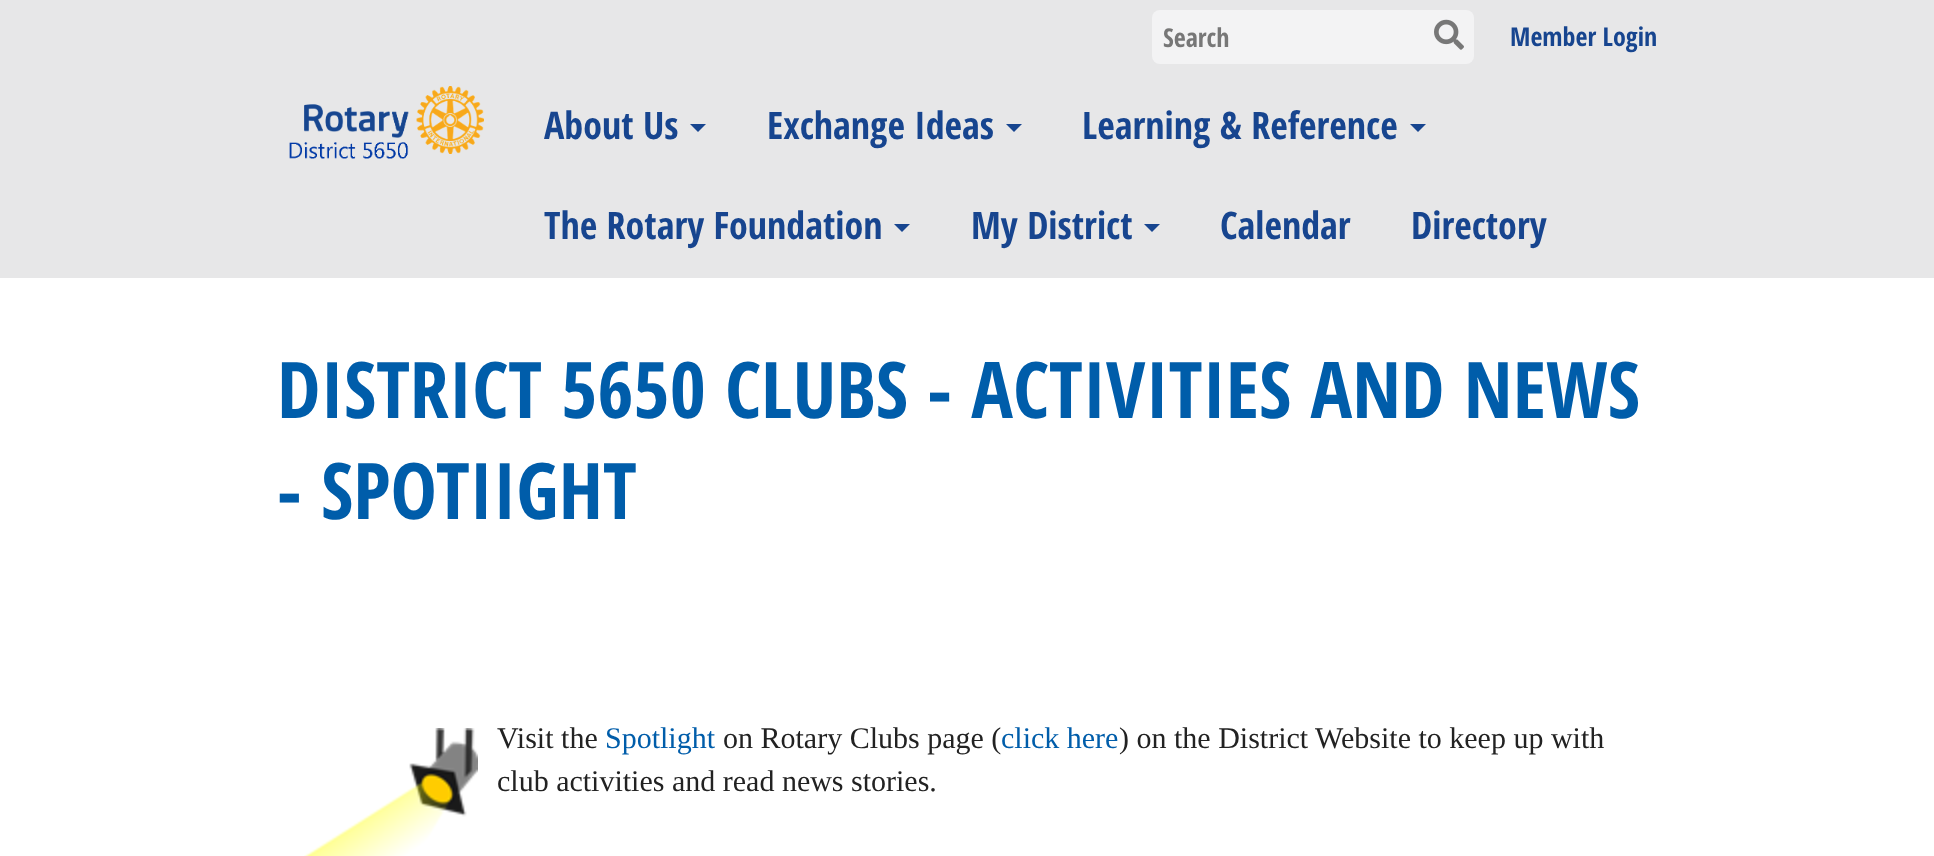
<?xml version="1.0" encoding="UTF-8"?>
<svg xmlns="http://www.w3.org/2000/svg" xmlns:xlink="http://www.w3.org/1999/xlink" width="1934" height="856">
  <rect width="100%" height="100%" fill="#ffffff" />
  <rect width="1934" height="278" fill="#e7e7e8" />
  <rect x="1152" y="10" width="322" height="54" rx="8" fill="#f3f3f4" />
  <image x="1434" y="19" width="30" height="31" xlink:href="image1.png" />
  <image x="289" y="86" width="195" height="73" xlink:href="image2.png" />
  <path d="M 690 124 h 16 l -8 8 z" fill="#17458f" />
  <path d="M 1006 124 h 16 l -8 8 z" fill="#17458f" />
  <path d="M 1410 124 h 16 l -8 8 z" fill="#17458f" />
  <path d="M 894 224 h 16 l -8 8 z" fill="#17458f" />
  <path d="M 1144 224 h 16 l -8 8 z" fill="#17458f" />
  <image x="304" y="728" width="174" height="128" xlink:href="image3.png" />
  <text x="1163" y="47" style="font-family: Open Sans Condensed; font-size: 26px; font-weight: bold; fill: #777777">Search</text>
  <text x="1510" y="46" style="font-family: Open Sans Condensed; font-size: 26px; font-weight: bold; fill: #17458f">Member Login</text>
  <text x="544" y="139" style="font-family: Open Sans Condensed; font-size: 38px; font-weight: bold; fill: #17458f">About Us</text>
  <text x="767" y="139" style="font-family: Open Sans Condensed; font-size: 38px; font-weight: bold; fill: #17458f">Exchange Ideas</text>
  <text x="1082" y="139" style="font-family: Open Sans Condensed; font-size: 38px; font-weight: bold; fill: #17458f">Learning &amp; Reference</text>
  <text x="544" y="239" style="font-family: Open Sans Condensed; font-size: 38px; font-weight: bold; fill: #17458f">The Rotary Foundation</text>
  <text x="971" y="239" style="font-family: Open Sans Condensed; font-size: 38px; font-weight: bold; fill: #17458f">My District</text>
  <text x="1220" y="239" style="font-family: Open Sans Condensed; font-size: 38px; font-weight: bold; fill: #17458f">Calendar</text>
  <text x="1411" y="239" style="font-family: Open Sans Condensed; font-size: 38px; font-weight: bold; fill: #17458f">Directory</text>
  <text x="277" y="418" style="font-family: Open Sans Condensed; font-size: 78px; font-weight: bold; fill: #005daa">DISTRICT 5650 CLUBS - ACTIVITIES AND NEWS</text>
  <text x="277" y="519" style="font-family: Open Sans Condensed; font-size: 78px; font-weight: bold; fill: #005daa">- SPOTIIGHT</text>
  <text x="497" y="748" style="font-family: Liberation Serif; font-size: 30px; fill: #222222">Visit the</text>
  <text x="605" y="748" style="font-family: Liberation Serif; font-size: 30px; fill: #005daa">Spotlight</text>
  <text x="723" y="748" style="font-family: Liberation Serif; font-size: 30px; fill: #222222">on Rotary Clubs page (</text>
  <text x="1001" y="748" style="font-family: Liberation Serif; font-size: 30px; fill: #005daa">click here</text>
  <text x="1119" y="748" style="font-family: Liberation Serif; font-size: 30px; fill: #222222">) on the District Website to keep up with</text>
  <text x="497" y="791" style="font-family: Liberation Serif; font-size: 30px; fill: #222222">club activities and read news stories.</text>
</svg>
